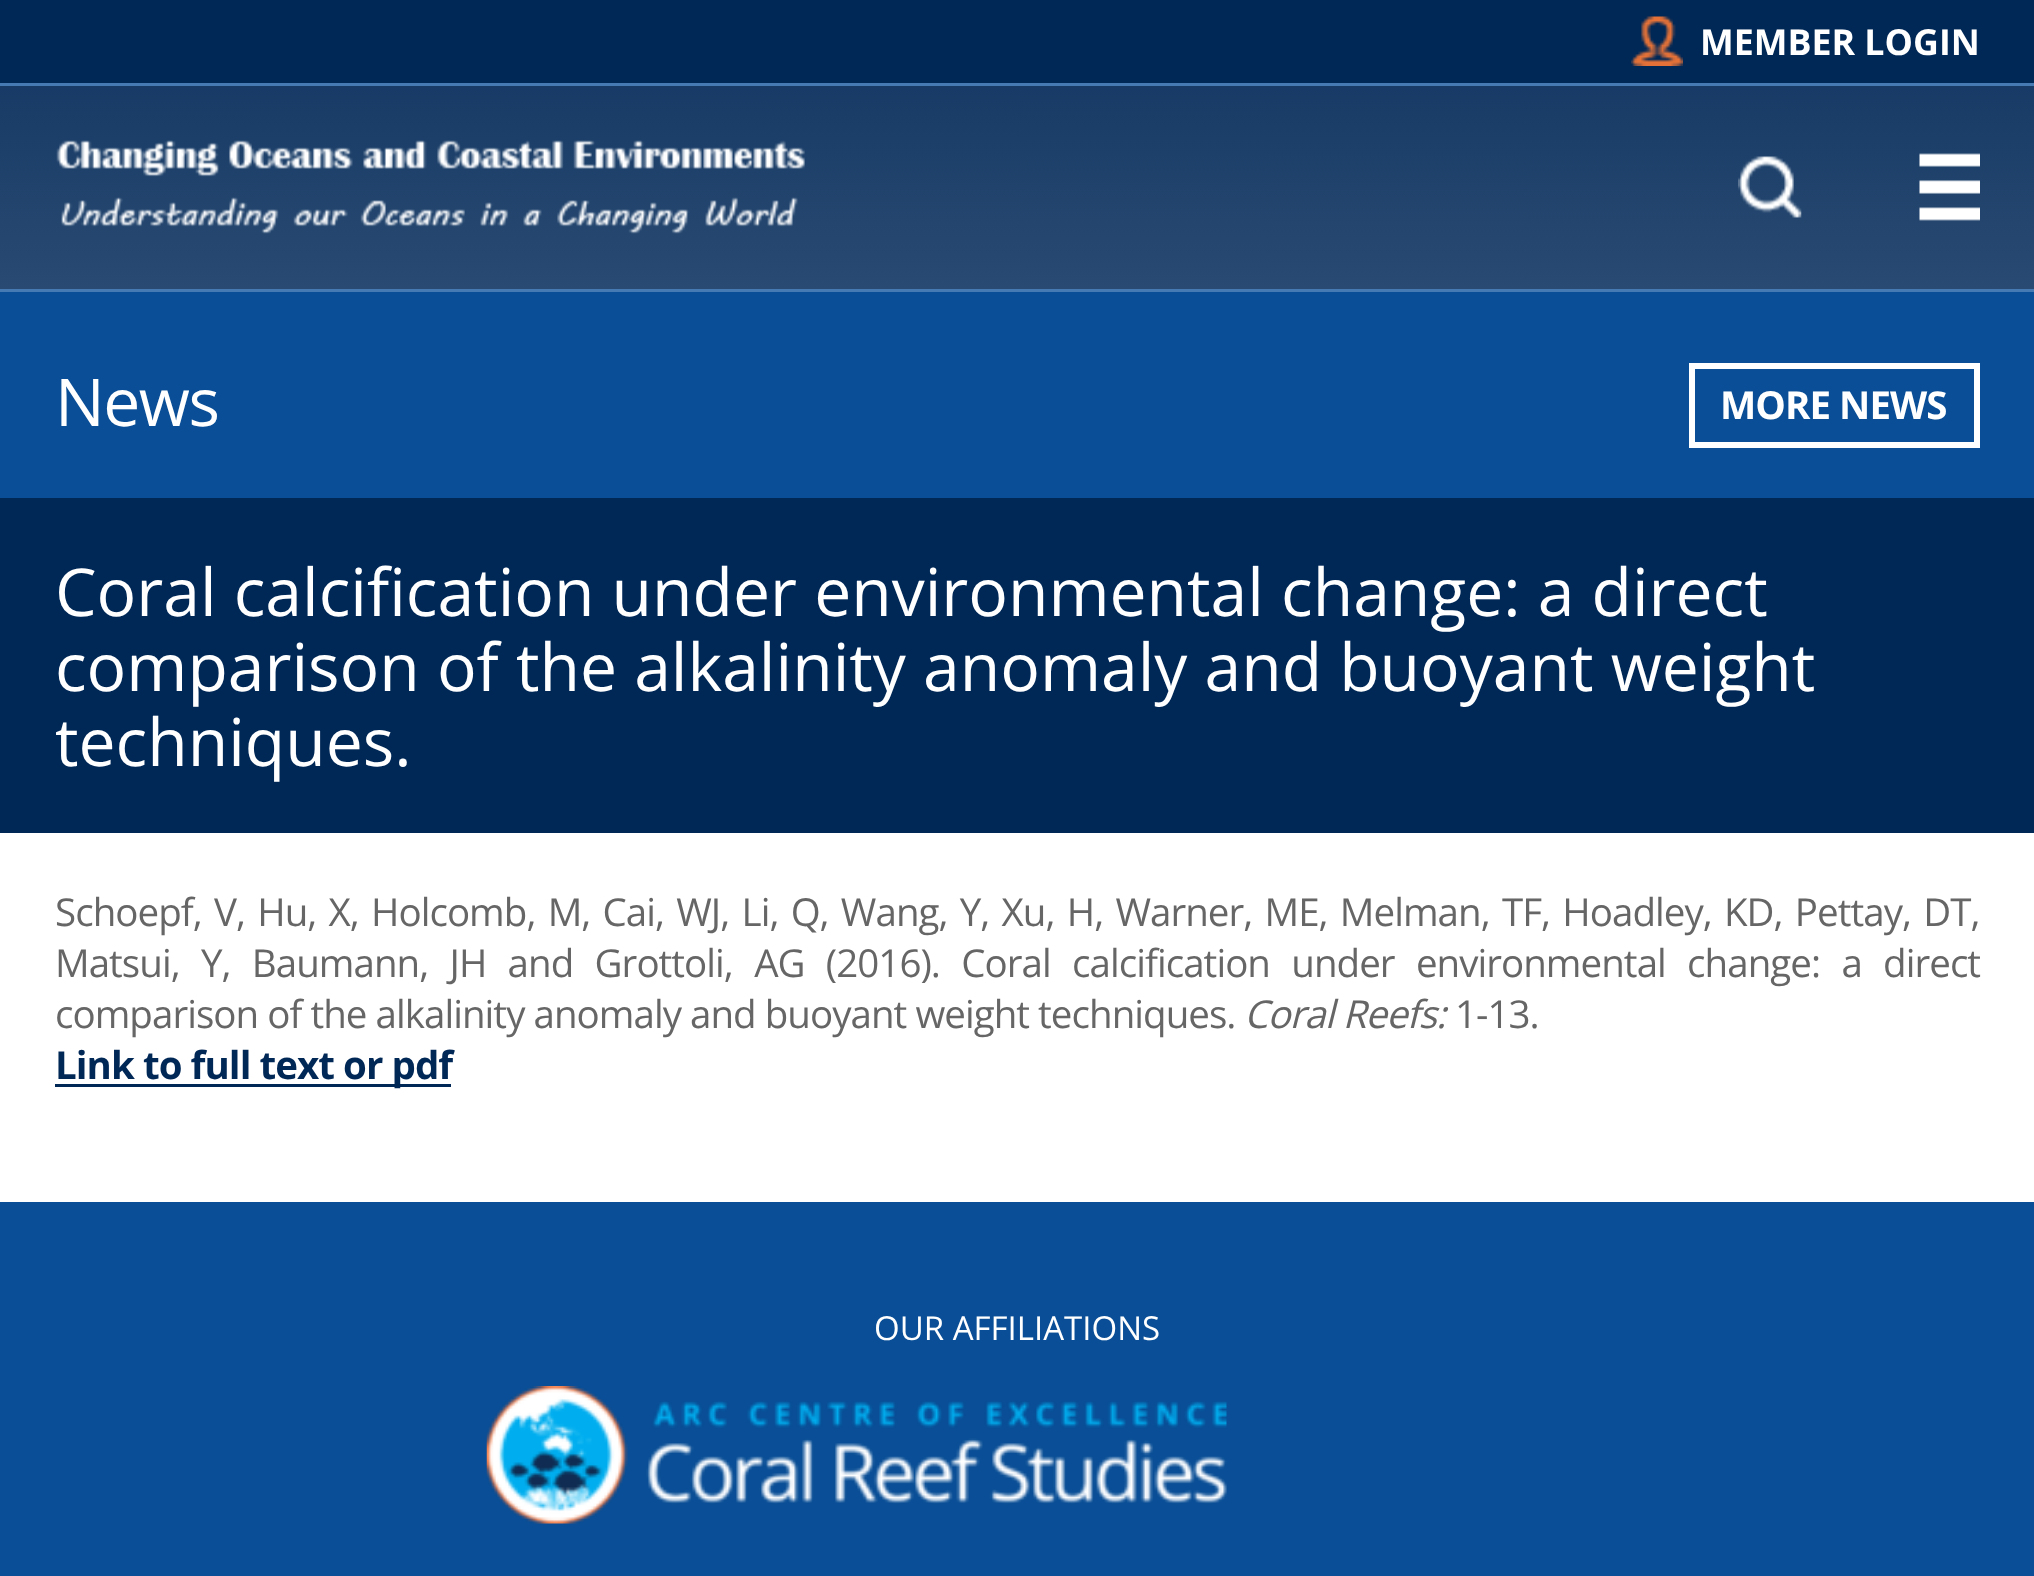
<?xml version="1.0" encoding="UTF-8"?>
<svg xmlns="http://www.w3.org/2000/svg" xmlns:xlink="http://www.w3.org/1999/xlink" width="2034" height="1576">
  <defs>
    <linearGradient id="g1" gradientUnits="userSpaceOnUse" x1="1018" y1="85" x2="1018" y2="289"><stop offset="0" stop-color="#173b66" /><stop offset="1" stop-color="#294a72" /></linearGradient>
  </defs>
  <rect width="100%" height="100%" fill="#094e96" />
  <rect width="2034" height="83" fill="#002857" />
  <rect y="83" width="2034" height="3" fill="#467ab3" />
  <image x="1631" y="16" width="52" height="50" xlink:href="image1.png" />
  <rect y="86" width="2034" height="203" fill="url(#g1)" />
  <rect y="289" width="2034" height="3" fill="#467ab3" />
  <image x="56" y="140" width="749" height="94" xlink:href="image2.png" />
  <image x="1738" y="156" width="64" height="62" xlink:href="image3.png" />
  <image x="1919" y="153" width="61" height="68" xlink:href="image4.png" />
  <rect x="1692" y="366" width="285" height="79" fill="none" stroke="#ffffff" stroke-width="6" />
  <rect y="498" width="2034" height="335" fill="#002857" />
  <rect y="833" width="2034" height="369" fill="#ffffff" />
  <rect x="55" y="1084" width="396" height="3" fill="#002857" />
  <image x="486" y="1386" width="741" height="138" xlink:href="image5.png" />
  <text x="1700" y="55" style="font-family: Open Sans; font-size: 35.75px; font-weight: bold; fill: #ffffff">MEMBER LOGIN</text>
  <text x="55" y="426" style="font-family: Open Sans; font-size: 66px; letter-spacing: -1.5px; fill: #ffffff">News</text>
  <text x="1720" y="419" style="font-family: Open Sans; font-size: 38.5px; font-weight: bold; letter-spacing: -0.96px; fill: #ffffff">MORE NEWS</text>
  <text x="55" y="616" style="font-family: Open Sans; font-size: 66px; fill: #ffffff">Coral calcification under environmental change: a direct</text>
  <text x="55" y="691" style="font-family: Open Sans; font-size: 66px; fill: #ffffff">comparison of the alkalinity anomaly and buoyant weight</text>
  <text x="55" y="766" style="font-family: Open Sans; font-size: 66px; fill: #ffffff">techniques.</text>
  <text x="55" y="926" word-spacing="3.2" style="font-family: Open Sans; font-size: 38.5px; letter-spacing: -0.96px; fill: #666666">Schoepf, V, Hu, X, Holcomb, M, Cai, WJ, Li, Q, Wang, Y, Xu, H, Warner, ME, Melman, TF, Hoadley, KD, Pettay, DT,</text>
  <text x="55" y="977" word-spacing="12.25" style="font-family: Open Sans; font-size: 38.5px; letter-spacing: -0.96px; fill: #666666">Matsui, Y, Baumann, JH and Grottoli, AG (2016). Coral calcification under environmental change: a direct</text>
  <text x="55" y="1028" style="font-family: Open Sans; font-size: 38.5px; letter-spacing: -0.96px; fill: #666666">comparison of the alkalinity anomaly and buoyant weight techniques.</text>
  <text x="1244" y="1028" style="font-family: Open Sans; font-size: 38.5px; font-style: italic; letter-spacing: -0.96px; fill: #666666">Coral Reefs:</text>
  <text x="1455" y="1028" style="font-family: Open Sans; font-size: 38.5px; letter-spacing: -0.96px; fill: #666666">1-13.</text>
  <text x="55" y="1079" style="font-family: Open Sans; font-size: 38.5px; font-weight: bold; letter-spacing: -0.96px; fill: #002857">Link to full text or pdf</text>
  <text x="874" y="1340" style="font-family: Open Sans; font-size: 33px; fill: #ffffff">OUR AFFILIATIONS</text>
</svg>
